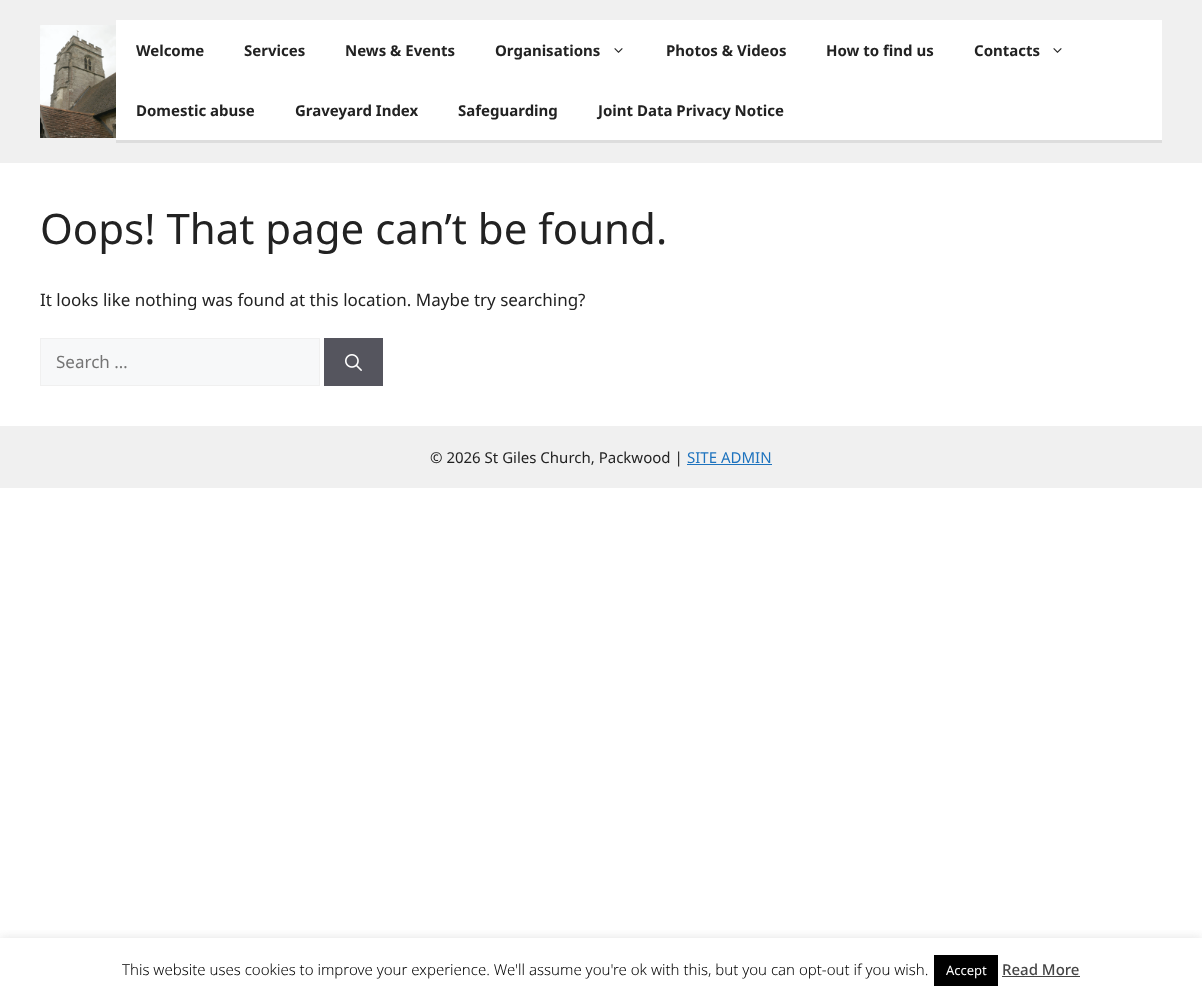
<?xml version="1.0" encoding="UTF-8"?>
<svg xmlns="http://www.w3.org/2000/svg" xmlns:xlink="http://www.w3.org/1999/xlink" width="1202" height="998">
  <defs>
    <clipPath id="clip1"><rect x="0" y="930" width="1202" height="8" /></clipPath>
  </defs>
  <rect width="100%" height="100%" fill="#ffffff" />
  <rect width="1202" height="163" fill="#f0f0f0" />
  <image x="40" y="25" width="76" height="113" xlink:href="image1.png" />
  <rect x="116" y="20" width="1046" height="120" fill="#ffffff" />
  <rect x="116" y="140" width="1046" height="3" fill="#dddddd" />
  <image x="614" y="48" width="9" height="5" xlink:href="image2.png" />
  <image x="1053" y="48" width="9" height="5" xlink:href="image2.png" />
  <rect x="40.5" y="338.5" width="279" height="47" fill="#f7f8f9" stroke="#f0f0f0" />
  <rect x="324" y="338" width="59" height="48" fill="#55555e" />
  <image x="345" y="354" width="17" height="17" xlink:href="image3.png" />
  <rect y="426" width="1202" height="62" fill="#f0f0f0" />
  <rect x="687" y="464" width="85" height="1" fill="#1e73be" />
  <g clip-path="url(#clip1)">
    <rect y="937" width="1202" height="60" fill="#acabab" fill-opacity="0.3" filter="blur(5px)" />
  </g>
  <rect x="934" y="955" width="64" height="31" fill="#000000" />
  <rect x="1002" y="976" width="78" height="1" fill="#444444" />
  <text x="136" y="56" style="font-family: Noto Sans; font-size: 15px; font-weight: bold; fill: #222222">Welcome</text>
  <text x="244" y="56" style="font-family: Noto Sans; font-size: 15px; font-weight: bold; fill: #222222">Services</text>
  <text x="345" y="56" style="font-family: Noto Sans; font-size: 15px; font-weight: bold; fill: #222222">News &amp; Events</text>
  <text x="495" y="56" style="font-family: Noto Sans; font-size: 15px; font-weight: bold; fill: #222222">Organisations</text>
  <text x="666" y="56" style="font-family: Noto Sans; font-size: 15px; font-weight: bold; fill: #222222">Photos &amp; Videos</text>
  <text x="826" y="56" style="font-family: Noto Sans; font-size: 15px; font-weight: bold; fill: #222222">How to find us</text>
  <text x="974" y="56" style="font-family: Noto Sans; font-size: 15px; font-weight: bold; fill: #222222">Contacts</text>
  <text x="136" y="116" style="font-family: Noto Sans; font-size: 15px; font-weight: bold; fill: #222222">Domestic abuse</text>
  <text x="295" y="116" style="font-family: Noto Sans; font-size: 15px; font-weight: bold; fill: #222222">Graveyard Index</text>
  <text x="458" y="116" style="font-family: Noto Sans; font-size: 15px; font-weight: bold; fill: #222222">Safeguarding</text>
  <text x="598" y="116" style="font-family: Noto Sans; font-size: 15px; font-weight: bold; fill: #222222">Joint Data Privacy Notice</text>
  <text x="40" y="244" style="font-family: Noto Sans; font-size: 42px; fill: #222222">Oops! That page can’t be found.</text>
  <text x="40" y="306" style="font-family: Noto Sans; font-size: 17px; fill: #222222">It looks like nothing was found at this location. Maybe try searching?</text>
  <text x="56" y="368" style="font-family: Noto Sans; font-size: 17px; fill: #757575">Search …</text>
  <text x="430" y="463" style="font-family: Noto Sans; font-size: 15px; fill: #222222">© 2026 St Giles Church, Packwood |</text>
  <text x="687" y="463" style="font-family: Noto Sans; font-size: 15px; fill: #1e73be">SITE ADMIN</text>
  <text x="122" y="975" style="font-family: Noto Sans; font-size: 15px; font-weight: 300; fill: #000000">This website uses cookies to improve your experience. We'll assume you're ok with this, but you can opt-out if you wish.</text>
  <text x="946" y="975" style="font-family: Noto Sans; font-size: 13px; fill: #ffffff">Accept</text>
  <text x="1002" y="975" style="font-family: Noto Sans; font-size: 15px; font-weight: 500; fill: #444444">Read More</text>
</svg>
